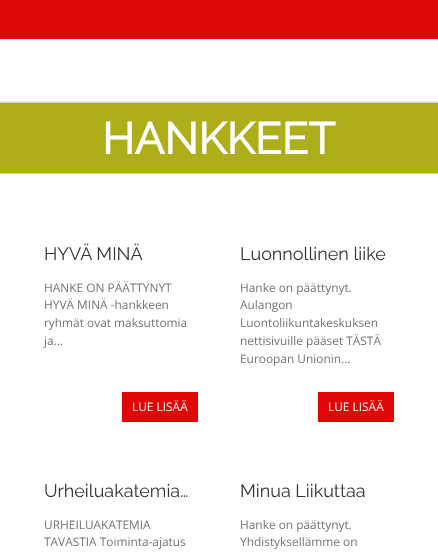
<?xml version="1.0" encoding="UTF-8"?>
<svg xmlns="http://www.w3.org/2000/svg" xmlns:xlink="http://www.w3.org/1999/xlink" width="438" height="557">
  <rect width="100%" height="100%" fill="#ffffff" />
  <rect width="438" height="39" fill="#e10707" />
  <rect y="39" width="438" height="1" fill="#e5e5e5" />
  <rect y="101" width="438" height="1" fill="#e5e5e5" />
  <rect y="103" width="438" height="70" fill="#aeae18" />
  <rect y="102" width="438" height="1" fill="#d2d3d4" />
  <rect y="173" width="438" height="1" fill="#d2d3d4" />
  <rect x="122" y="392" width="76" height="30" fill="#e10707" />
  <rect x="318" y="392" width="76" height="30" fill="#e10707" />
  <text x="102" y="154" style="font-family: Raleway; font-size: 44px; font-weight: bold; fill: #ffffff">HANKKEET</text>
  <text x="44" y="260" style="font-family: Raleway; font-size: 18px; font-weight: 100; fill: #333333">HYVÄ MINÄ</text>
  <text x="44" y="292" style="font-family: Open Sans; font-size: 11.9px; fill: #747474">HANKE ON PÄÄTTYNYT</text>
  <text x="44" y="309" style="font-family: Open Sans; font-size: 11.9px; fill: #747474">HYVÄ MINÄ -hankkeen</text>
  <text x="44" y="327" style="font-family: Open Sans; font-size: 11.9px; fill: #747474">ryhmät ovat maksuttomia</text>
  <text x="44" y="345" style="font-family: Open Sans; font-size: 11.9px; fill: #747474">ja...</text>
  <text x="132" y="411" style="font-family: Open Sans; font-size: 11.9px; fill: #ffffff">LUE LISÄÄ</text>
  <text x="240" y="260" style="font-family: Raleway; font-size: 18px; font-weight: 100; fill: #333333">Luonnollinen liike</text>
  <text x="240" y="292" style="font-family: Open Sans; font-size: 11.9px; fill: #747474">Hanke on päättynyt.</text>
  <text x="240" y="309" style="font-family: Open Sans; font-size: 11.9px; fill: #747474">Aulangon</text>
  <text x="240" y="327" style="font-family: Open Sans; font-size: 11.9px; fill: #747474">Luontoliikuntakeskuksen</text>
  <text x="240" y="345" style="font-family: Open Sans; font-size: 11.9px; fill: #747474">nettisivuille pääset TÄSTÄ</text>
  <text x="240" y="363" style="font-family: Open Sans; font-size: 11.9px; fill: #747474">Euroopan Unionin...</text>
  <text x="328" y="411" style="font-family: Open Sans; font-size: 11.9px; fill: #ffffff">LUE LISÄÄ</text>
  <text x="44" y="497" style="font-family: Raleway; font-size: 18px; font-weight: 100; fill: #333333">Urheiluakatemia…</text>
  <text x="44" y="529" style="font-family: Open Sans; font-size: 11.9px; fill: #747474">URHEILUAKATEMIA</text>
  <text x="44" y="546" style="font-family: Open Sans; font-size: 11.9px; fill: #747474">TAVASTIA Toiminta-ajatus</text>
  <text x="240" y="497" style="font-family: Raleway; font-size: 18px; font-weight: 100; fill: #333333">Minua Liikuttaa</text>
  <text x="240" y="529" style="font-family: Open Sans; font-size: 11.9px; fill: #747474">Hanke on päättynyt.</text>
  <text x="240" y="546" style="font-family: Open Sans; font-size: 11.9px; fill: #747474">Yhdistyksellämme on</text>
</svg>
